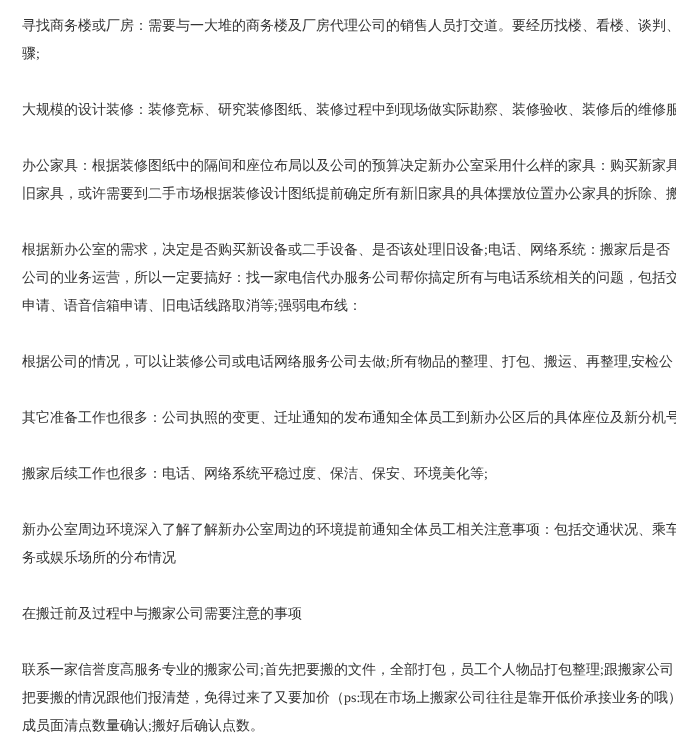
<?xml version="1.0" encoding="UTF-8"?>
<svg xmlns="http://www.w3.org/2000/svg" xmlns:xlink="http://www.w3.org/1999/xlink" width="676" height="738">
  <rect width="100%" height="100%" fill="#ffffff" />
  <text x="22" y="30" style="font-family: WenQuanYi Zen Hei; font-size: 14px; font-weight: 500; fill: #333333">寻找商务楼或厂房：需要与一大堆的商务楼及厂房代理公司的销售人员打交道。要经历找楼、看楼、谈判、</text>
  <text x="22" y="58" style="font-family: WenQuanYi Zen Hei; font-size: 14px; font-weight: 500; fill: #333333">骤</text>
  <text x="36" y="58" style="font-family: Liberation Serif; font-size: 14px; fill: #333333">;</text>
  <text x="22" y="114" style="font-family: WenQuanYi Zen Hei; font-size: 14px; font-weight: 500; fill: #333333">大规模的设计装修：装修竞标、研究装修图纸、装修过程中到现场做实际勘察、装修验收、装修后的维修服</text>
  <text x="22" y="170" style="font-family: WenQuanYi Zen Hei; font-size: 14px; font-weight: 500; fill: #333333">办公家具：根据装修图纸中的隔间和座位布局以及公司的预算决定新办公室采用什么样的家具：购买新家具</text>
  <text x="22" y="198" style="font-family: WenQuanYi Zen Hei; font-size: 14px; font-weight: 500; fill: #333333">旧家具，或许需要到二手市场根据装修设计图纸提前确定所有新旧家具的具体摆放位置办公家具的拆除、搬</text>
  <text x="22" y="254" style="font-family: WenQuanYi Zen Hei; font-size: 14px; font-weight: 500; fill: #333333">根据新办公室的需求，决定是否购买新设备或二手设备、是否该处理旧设备</text>
  <text x="484" y="254" style="font-family: Liberation Serif; font-size: 14px; fill: #333333">;</text>
  <text x="488" y="254" style="font-family: WenQuanYi Zen Hei; font-size: 14px; font-weight: 500; fill: #333333">电话、网络系统：搬家后是否</text>
  <text x="22" y="282" style="font-family: WenQuanYi Zen Hei; font-size: 14px; font-weight: 500; fill: #333333">公司的业务运营，所以一定要搞好：找一家电信代办服务公司帮你搞定所有与电话系统相关的问题，包括交</text>
  <text x="22" y="310" style="font-family: WenQuanYi Zen Hei; font-size: 14px; font-weight: 500; fill: #333333">申请、语音信箱申请、旧电话线路取消等</text>
  <text x="274" y="310" style="font-family: Liberation Serif; font-size: 14px; fill: #333333">;</text>
  <text x="278" y="310" style="font-family: WenQuanYi Zen Hei; font-size: 14px; font-weight: 500; fill: #333333">强弱电布线：</text>
  <text x="22" y="366" style="font-family: WenQuanYi Zen Hei; font-size: 14px; font-weight: 500; fill: #333333">根据公司的情况，可以让装修公司或电话网络服务公司去做</text>
  <text x="386" y="366" style="font-family: Liberation Serif; font-size: 14px; fill: #333333">;</text>
  <text x="390" y="366" style="font-family: WenQuanYi Zen Hei; font-size: 14px; font-weight: 500; fill: #333333">所有物品的整理、打包、搬运、再整理</text>
  <text x="628" y="366" style="font-family: Liberation Serif; font-size: 14px; fill: #333333">,</text>
  <text x="631" y="366" style="font-family: WenQuanYi Zen Hei; font-size: 14px; font-weight: 500; fill: #333333">安检公</text>
  <text x="22" y="422" style="font-family: WenQuanYi Zen Hei; font-size: 14px; font-weight: 500; fill: #333333">其它准备工作也很多：公司执照的变更、迁址通知的发布通知全体员工到新办公区后的具体座位及新分机号</text>
  <text x="22" y="478" style="font-family: WenQuanYi Zen Hei; font-size: 14px; font-weight: 500; fill: #333333">搬家后续工作也很多：电话、网络系统平稳过度、保洁、保安、环境美化等</text>
  <text x="484" y="478" style="font-family: Liberation Serif; font-size: 14px; fill: #333333">;</text>
  <text x="22" y="534" style="font-family: WenQuanYi Zen Hei; font-size: 14px; font-weight: 500; fill: #333333">新办公室周边环境深入了解了解新办公室周边的环境提前通知全体员工相关注意事项：包括交通状况、乘车</text>
  <text x="22" y="562" style="font-family: WenQuanYi Zen Hei; font-size: 14px; font-weight: 500; fill: #333333">务或娱乐场所的分布情况</text>
  <text x="22" y="618" style="font-family: WenQuanYi Zen Hei; font-size: 14px; font-weight: 500; fill: #333333">在搬迁前及过程中与搬家公司需要注意的事项</text>
  <text x="22" y="674" style="font-family: WenQuanYi Zen Hei; font-size: 14px; font-weight: 500; fill: #333333">联系一家信誉度高服务专业的搬家公司</text>
  <text x="260" y="674" style="font-family: Liberation Serif; font-size: 14px; fill: #333333">;</text>
  <text x="264" y="674" style="font-family: WenQuanYi Zen Hei; font-size: 14px; font-weight: 500; fill: #333333">首先把要搬的文件，全部打包，员工个人物品打包整理</text>
  <text x="600" y="674" style="font-family: Liberation Serif; font-size: 14px; fill: #333333">;</text>
  <text x="604" y="674" style="font-family: WenQuanYi Zen Hei; font-size: 14px; font-weight: 500; fill: #333333">跟搬家公司</text>
  <text x="22" y="702" style="font-family: WenQuanYi Zen Hei; font-size: 14px; font-weight: 500; fill: #333333">把要搬的情况跟他们报清楚，免得过来了又要加价（</text>
  <text x="344" y="702" style="font-family: Liberation Serif; font-size: 14px; fill: #333333">ps:</text>
  <text x="360" y="702" style="font-family: WenQuanYi Zen Hei; font-size: 14px; font-weight: 500; fill: #333333">现在市场上搬家公司往往是靠开低价承接业务的哦）</text>
  <text x="22" y="730" style="font-family: WenQuanYi Zen Hei; font-size: 14px; font-weight: 500; fill: #333333">成员面清点数量确认</text>
  <text x="148" y="730" style="font-family: Liberation Serif; font-size: 14px; fill: #333333">;</text>
  <text x="152" y="730" style="font-family: WenQuanYi Zen Hei; font-size: 14px; font-weight: 500; fill: #333333">搬好后确认点数。</text>
</svg>
